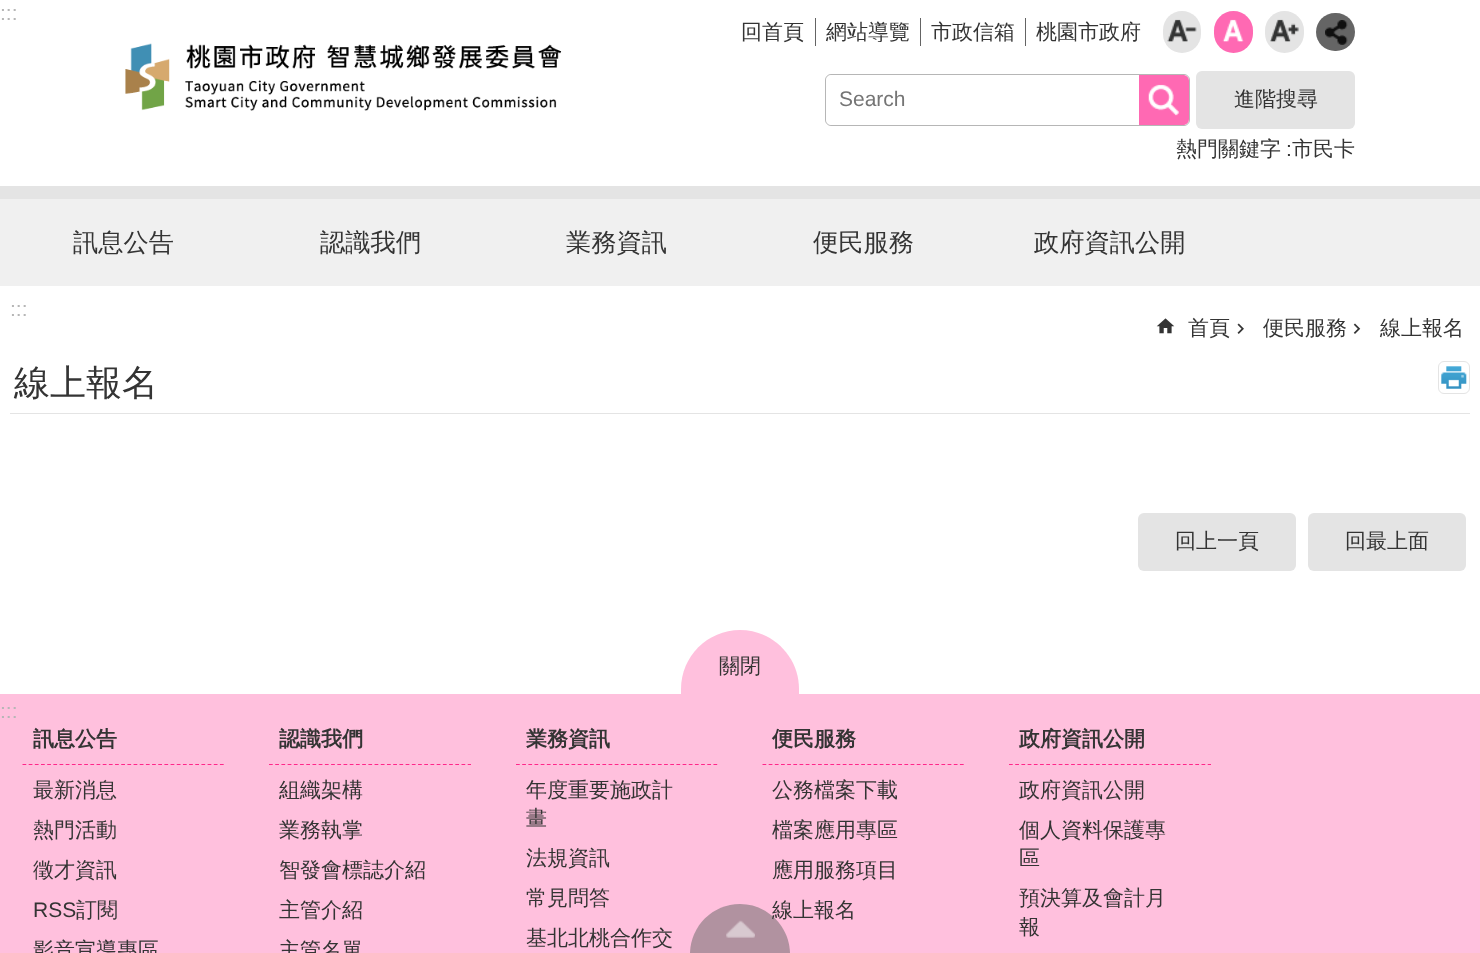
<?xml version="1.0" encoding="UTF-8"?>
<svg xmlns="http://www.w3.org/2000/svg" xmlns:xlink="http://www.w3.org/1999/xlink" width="1480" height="953">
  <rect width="100%" height="100%" fill="#ffffff" />
  <image x="125" y="43" width="437" height="68" xlink:href="image1.png" />
  <rect x="815" y="18" width="1" height="28" fill="#646464" />
  <rect x="920" y="18" width="1" height="28" fill="#646464" />
  <rect x="1025" y="18" width="1" height="28" fill="#646464" />
  <rect x="1163" y="11" width="38" height="42" rx="19" fill="#e4e4e4" />
  <image x="1167" y="19" width="30" height="23" xlink:href="image2.png" />
  <rect x="1214" y="11" width="39" height="42" rx="19.5" fill="#ff69b3" />
  <image x="1222" y="19" width="22" height="23" xlink:href="image3.png" />
  <rect x="1265" y="11" width="39" height="42" rx="19.5" fill="#e4e4e4" />
  <image x="1270" y="19" width="29" height="23" xlink:href="image4.png" />
  <rect x="1316" y="13" width="39" height="38" rx="19" fill="#656565" />
  <image x="1325" y="20" width="23" height="25" xlink:href="image5.png" />
  <rect x="825.5" y="74.5" width="364" height="51" rx="5.5" fill="none" stroke="#b6b6b6" />
  <rect x="826" y="75" width="313" height="50" rx="6" fill="#ffffff" />
  <path d="M 1139 75 h 44 c 3.5 0 6 2.5 6 6 v 38 c 0 3.5 -2.5 6 -6 6 h -44 z" fill="#ff69b3" />
  <image x="1148" y="84" width="31" height="32" xlink:href="image6.png" />
  <rect x="1196" y="71" width="159" height="58" rx="6" fill="#e4e4e4" />
  <rect y="186" width="1480" height="13" fill="#e4e4e4" />
  <rect y="199" width="1480" height="87" fill="#f0f0f0" />
  <image x="1156" y="318" width="19" height="16" xlink:href="image7.png" />
  <image x="1237" y="323" width="7" height="11" xlink:href="image8.png" />
  <image x="1353" y="323" width="8" height="11" xlink:href="image9.png" />
  <rect x="10" y="413" width="1460" height="1" fill="#e4e4e4" />
  <image x="1441" y="366" width="26" height="23" xlink:href="image10.png" />
  <rect x="1438.5" y="361.5" width="31" height="32" rx="5.5" fill="none" stroke="#e4e4e4" />
  <rect x="1138" y="513" width="158" height="58" rx="6" fill="#e4e4e4" />
  <rect x="1308" y="513" width="158" height="58" rx="6" fill="#e4e4e4" />
  <rect y="694" width="1480" height="259" fill="#ffc0dd" />
  <path d="M 740 630 c 32.5 0 59 26.5 59 59 v 5 h -118 v -5 c 0 -32.5 26.5 -59 59 -59 z" fill="#ffc0dd" />
  <path d="M 22.5 764.5 h 201.5" fill="none" stroke="#ff278a" stroke-width="1.2" stroke-dasharray="3.75 2.42" />
  <path d="M 269 764.5 h 202" fill="none" stroke="#ff278a" stroke-width="1.2" stroke-dasharray="3.75 2.46" />
  <path d="M 516 764.5 h 201.5" fill="none" stroke="#ff278a" stroke-width="1.2" stroke-dasharray="3.75 2.42" />
  <path d="M 762.5 764.5 h 201.5" fill="none" stroke="#ff278a" stroke-width="1.2" stroke-dasharray="3.75 2.42" />
  <path d="M 1009 764.5 h 202" fill="none" stroke="#ff278a" stroke-width="1.2" stroke-dasharray="3.75 2.46" />
  <text x="0" y="20" style="font-family: Liberation Sans; font-size: 21px; fill: #b6b6b6">:::</text>
  <text x="741" y="39" style="font-family: WenQuanYi Zen Hei; font-size: 21px; font-weight: 500; fill: #343434">回首頁</text>
  <text x="826" y="39" style="font-family: WenQuanYi Zen Hei; font-size: 21px; font-weight: 500; fill: #343434">網站導覽</text>
  <text x="931" y="39" style="font-family: WenQuanYi Zen Hei; font-size: 21px; font-weight: 500; fill: #343434">市政信箱</text>
  <text x="1036" y="39" style="font-family: WenQuanYi Zen Hei; font-size: 21px; font-weight: 500; fill: #343434">桃園市政府</text>
  <text x="839" y="106" style="font-family: Liberation Sans; font-size: 21px; fill: #757575">Search</text>
  <text x="1234" y="106" style="font-family: WenQuanYi Zen Hei; font-size: 21px; font-weight: 500; fill: #343434">進階搜尋</text>
  <text x="1176" y="156" style="font-family: WenQuanYi Zen Hei; font-size: 21px; font-weight: 500; fill: #343434">熱門關鍵字</text>
  <text x="1286" y="156" style="font-family: Liberation Sans; font-size: 21px; fill: #343434">:</text>
  <text x="1292" y="156" style="font-family: WenQuanYi Zen Hei; font-size: 21px; font-weight: 500; fill: #343434">市民卡</text>
  <text x="73" y="251" style="font-family: WenQuanYi Zen Hei; font-size: 25.25px; font-weight: 500; fill: #343434">訊息公告</text>
  <text x="320" y="251" style="font-family: WenQuanYi Zen Hei; font-size: 25.25px; font-weight: 500; fill: #343434">認識我們</text>
  <text x="566" y="251" style="font-family: WenQuanYi Zen Hei; font-size: 25.25px; font-weight: 500; fill: #343434">業務資訊</text>
  <text x="813" y="251" style="font-family: WenQuanYi Zen Hei; font-size: 25.25px; font-weight: 500; fill: #343434">便民服務</text>
  <text x="1034" y="251" style="font-family: WenQuanYi Zen Hei; font-size: 25.25px; font-weight: 500; fill: #343434">政府資訊公開</text>
  <text x="10" y="316" style="font-family: Liberation Sans; font-size: 21px; fill: #b6b6b6">:::</text>
  <text x="1188" y="335" style="font-family: WenQuanYi Zen Hei; font-size: 21px; font-weight: 500; fill: #343434">首頁</text>
  <text x="1263" y="335" style="font-family: WenQuanYi Zen Hei; font-size: 21px; font-weight: 500; fill: #343434">便民服務</text>
  <text x="1380" y="335" style="font-family: WenQuanYi Zen Hei; font-size: 21px; font-weight: 500; fill: #343434">線上報名</text>
  <text x="14" y="395" style="font-family: WenQuanYi Zen Hei; font-size: 36px; font-weight: 500; fill: #343434">線上報名</text>
  <text x="1175" y="548" style="font-family: WenQuanYi Zen Hei; font-size: 21px; font-weight: 500; fill: #343434">回上一頁</text>
  <text x="1345" y="548" style="font-family: WenQuanYi Zen Hei; font-size: 21px; font-weight: 500; fill: #343434">回最上面</text>
  <text x="719" y="673" style="font-family: WenQuanYi Zen Hei; font-size: 21px; font-weight: 500; fill: #343434">關閉</text>
  <text x="0" y="718" style="font-family: Liberation Sans; font-size: 21px; fill: #b6b6b6">:::</text>
  <text x="33" y="746" style="font-family: WenQuanYi Zen Hei; font-size: 21px; font-weight: bold; fill: #343434">訊息公告</text>
  <text x="33" y="797" style="font-family: WenQuanYi Zen Hei; font-size: 21px; font-weight: 500; fill: #343434">最新消息</text>
  <text x="33" y="837" style="font-family: WenQuanYi Zen Hei; font-size: 21px; font-weight: 500; fill: #343434">熱門活動</text>
  <text x="33" y="877" style="font-family: WenQuanYi Zen Hei; font-size: 21px; font-weight: 500; fill: #343434">徵才資訊</text>
  <text x="33" y="917" style="font-family: Liberation Sans; font-size: 21px; fill: #343434">RSS</text>
  <text x="76" y="917" style="font-family: WenQuanYi Zen Hei; font-size: 21px; font-weight: 500; fill: #343434">訂閱</text>
  <text x="33" y="957" style="font-family: WenQuanYi Zen Hei; font-size: 21px; font-weight: 500; fill: #343434">影音宣導專區</text>
  <text x="279" y="746" style="font-family: WenQuanYi Zen Hei; font-size: 21px; font-weight: bold; fill: #343434">認識我們</text>
  <text x="279" y="797" style="font-family: WenQuanYi Zen Hei; font-size: 21px; font-weight: 500; fill: #343434">組織架構</text>
  <text x="279" y="837" style="font-family: WenQuanYi Zen Hei; font-size: 21px; font-weight: 500; fill: #343434">業務執掌</text>
  <text x="279" y="877" style="font-family: WenQuanYi Zen Hei; font-size: 21px; font-weight: 500; fill: #343434">智發會標誌介紹</text>
  <text x="279" y="917" style="font-family: WenQuanYi Zen Hei; font-size: 21px; font-weight: 500; fill: #343434">主管介紹</text>
  <text x="279" y="957" style="font-family: WenQuanYi Zen Hei; font-size: 21px; font-weight: 500; fill: #343434">主管名單</text>
  <text x="526" y="746" style="font-family: WenQuanYi Zen Hei; font-size: 21px; font-weight: bold; fill: #343434">業務資訊</text>
  <text x="526" y="797" style="font-family: WenQuanYi Zen Hei; font-size: 21px; font-weight: 500; fill: #343434">年度重要施政計</text>
  <text x="526" y="825" style="font-family: WenQuanYi Zen Hei; font-size: 21px; font-weight: 500; fill: #343434">畫</text>
  <text x="526" y="865" style="font-family: WenQuanYi Zen Hei; font-size: 21px; font-weight: 500; fill: #343434">法規資訊</text>
  <text x="526" y="905" style="font-family: WenQuanYi Zen Hei; font-size: 21px; font-weight: 500; fill: #343434">常見問答</text>
  <text x="526" y="945" style="font-family: WenQuanYi Zen Hei; font-size: 21px; font-weight: 500; fill: #343434">基北北桃合作交</text>
  <text x="772" y="746" style="font-family: WenQuanYi Zen Hei; font-size: 21px; font-weight: bold; fill: #343434">便民服務</text>
  <text x="772" y="797" style="font-family: WenQuanYi Zen Hei; font-size: 21px; font-weight: 500; fill: #343434">公務檔案下載</text>
  <text x="772" y="837" style="font-family: WenQuanYi Zen Hei; font-size: 21px; font-weight: 500; fill: #343434">檔案應用專區</text>
  <text x="772" y="877" style="font-family: WenQuanYi Zen Hei; font-size: 21px; font-weight: 500; fill: #343434">應用服務項目</text>
  <text x="772" y="917" style="font-family: WenQuanYi Zen Hei; font-size: 21px; font-weight: 500; fill: #343434">線上報名</text>
  <text x="1019" y="746" style="font-family: WenQuanYi Zen Hei; font-size: 21px; font-weight: bold; fill: #343434">政府資訊公開</text>
  <text x="1019" y="797" style="font-family: WenQuanYi Zen Hei; font-size: 21px; font-weight: 500; fill: #343434">政府資訊公開</text>
  <text x="1019" y="837" style="font-family: WenQuanYi Zen Hei; font-size: 21px; font-weight: 500; fill: #343434">個人資料保護專</text>
  <text x="1019" y="865" style="font-family: WenQuanYi Zen Hei; font-size: 21px; font-weight: 500; fill: #343434">區</text>
  <text x="1019" y="905" style="font-family: WenQuanYi Zen Hei; font-size: 21px; font-weight: 500; fill: #343434">預決算及會計月</text>
  <text x="1019" y="934" style="font-family: WenQuanYi Zen Hei; font-size: 21px; font-weight: 500; fill: #343434">報</text>
  <path d="M 740 904 c 27.5 0 50 22.5 50 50 h -100 c 0 -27.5 22.5 -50 50 -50 z" fill="#646464" fill-opacity="0.5" />
  <image x="726" y="920" width="29" height="18" xlink:href="image11.png" />
</svg>
